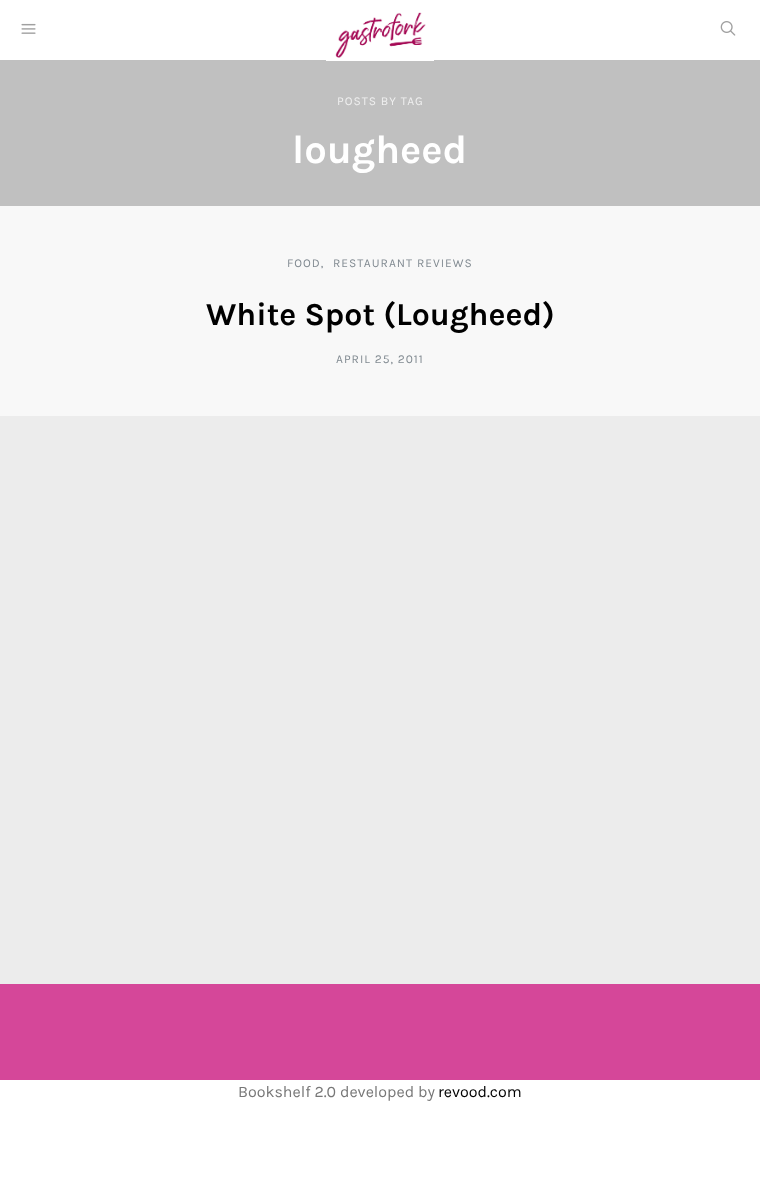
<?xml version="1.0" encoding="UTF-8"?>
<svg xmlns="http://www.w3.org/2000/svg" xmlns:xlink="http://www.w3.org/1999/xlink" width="760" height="1184">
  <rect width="100%" height="100%" fill="#ffffff" />
  <image x="21" y="23" width="15" height="11" xlink:href="image1.png" />
  <rect y="60" width="760" height="146" fill="#c0c0c0" />
  <image x="326" y="12" width="108" height="49" xlink:href="image2.png" />
  <image x="720" y="21" width="16" height="15" xlink:href="image3.png" />
  <rect y="206" width="760" height="210" fill="#f8f8f8" />
  <rect y="416" width="760" height="568" fill="#ececec" />
  <rect y="984" width="760" height="96" fill="#d54799" />
  <text x="337" y="105" style="font-family: Karla; font-size: 12px; letter-spacing: 1px; fill: #efefef">POSTS BY TAG</text>
  <text x="292" y="163" style="font-family: Karla; font-size: 40px; font-weight: bold; fill: #ffffff">lougheed</text>
  <text x="287" y="267" style="font-family: Karla; font-size: 12px; letter-spacing: 1px; fill: #818a91">FOOD,</text>
  <text x="333" y="267" style="font-family: Karla; font-size: 12px; letter-spacing: 1px; fill: #818a91">RESTAURANT REVIEWS</text>
  <text x="206" y="325" style="font-family: Karla; font-size: 32px; font-weight: bold; fill: #000000">White Spot (Lougheed)</text>
  <text x="336" y="363" style="font-family: Karla; font-size: 12px; letter-spacing: 1px; fill: #818a91">APRIL 25, 2011</text>
  <text x="238" y="1097" style="font-family: Karla; font-size: 16px; fill: #777777">Bookshelf 2.0 developed by</text>
  <text x="438" y="1097" style="font-family: Karla; font-size: 16px; fill: #000000">revood.com</text>
</svg>
